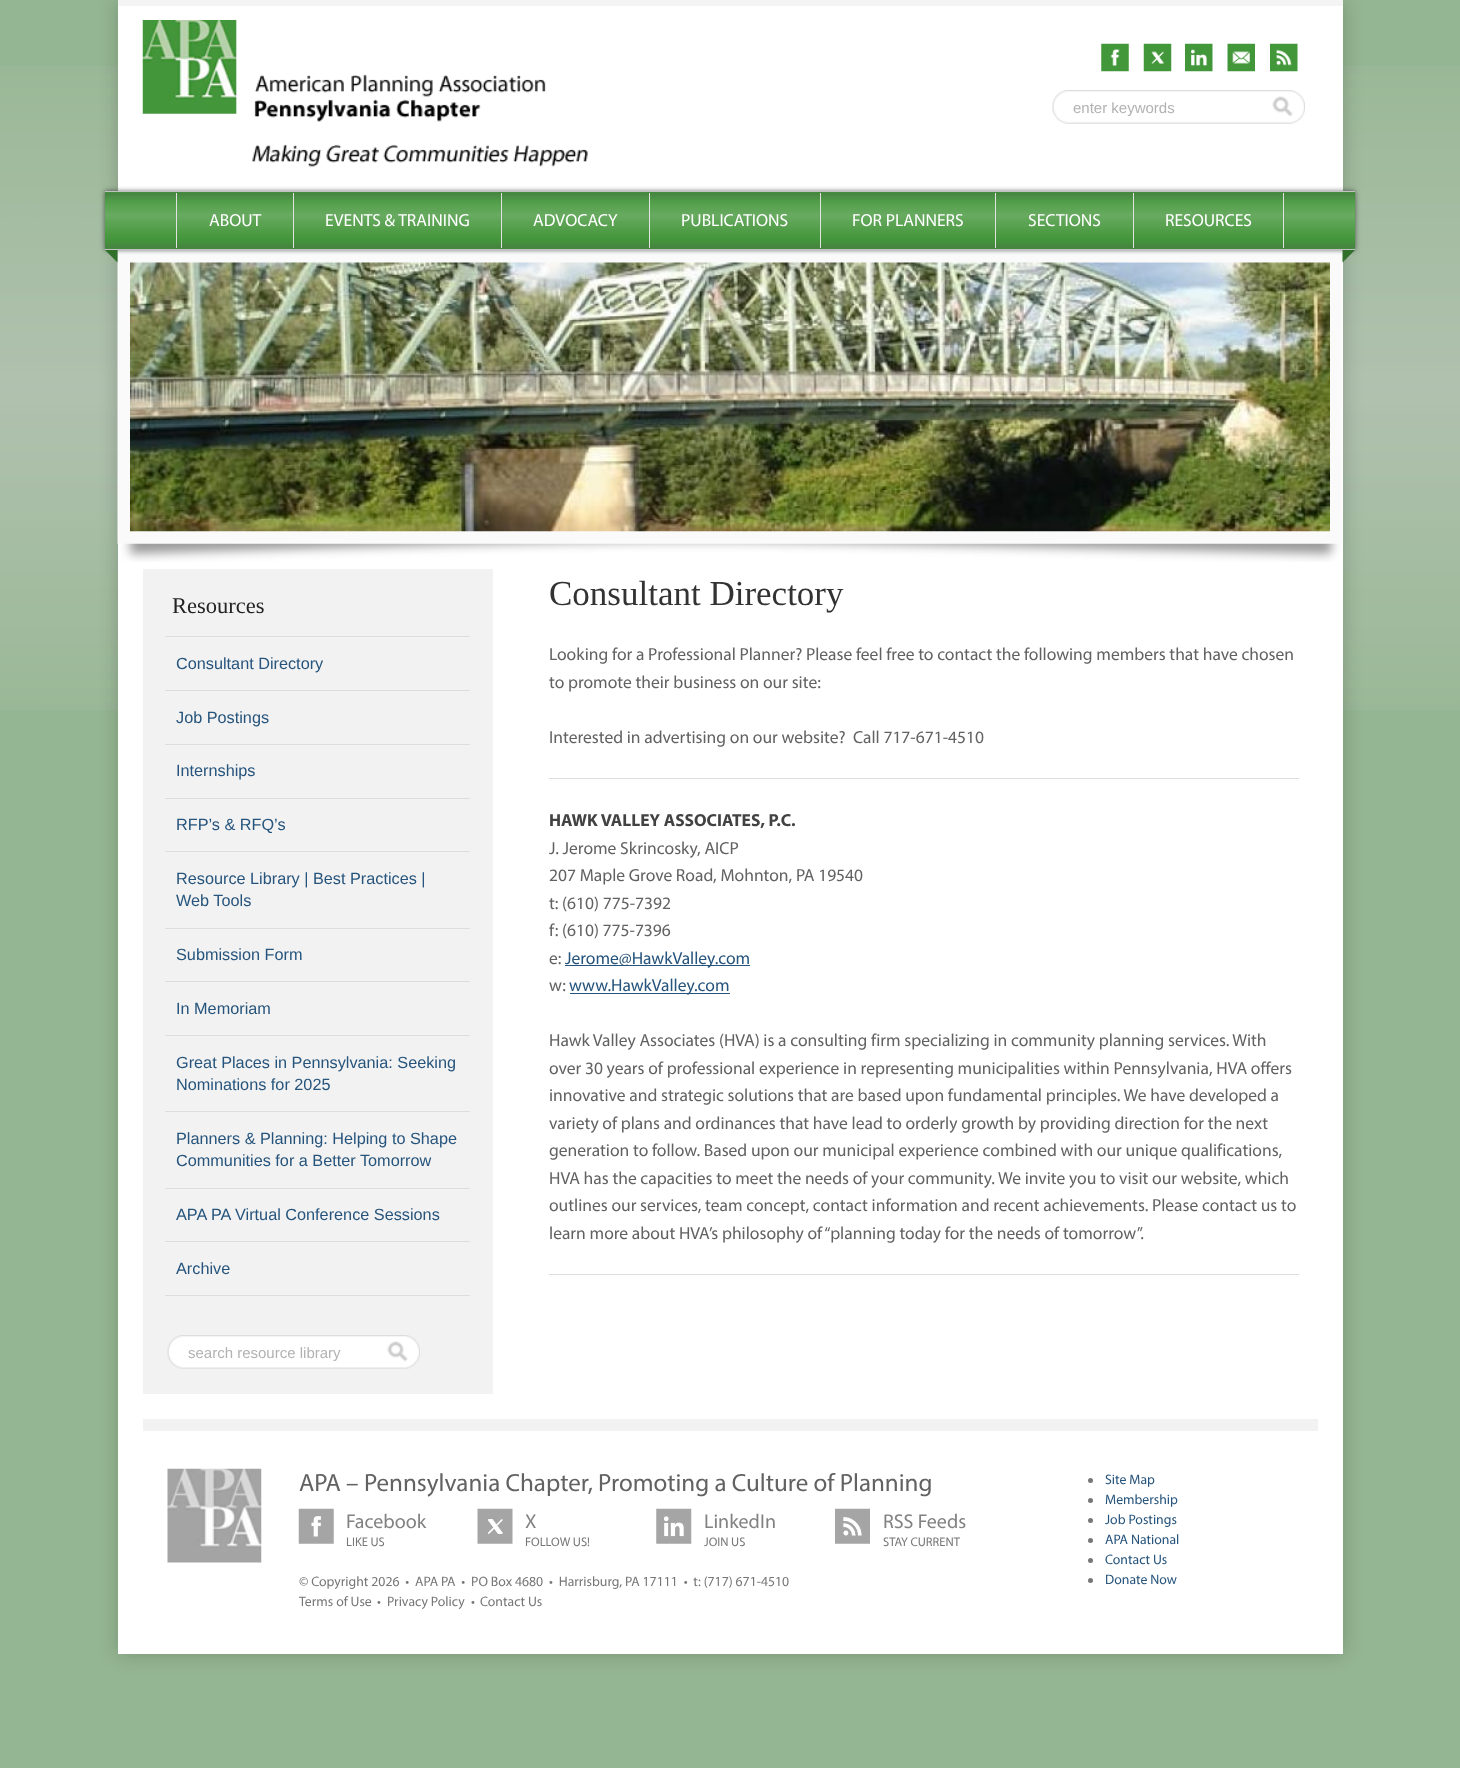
<?xml version="1.0" encoding="UTF-8"?>
<svg xmlns="http://www.w3.org/2000/svg" xmlns:xlink="http://www.w3.org/1999/xlink" width="1460" height="1768">
  <rect width="100%" height="100%" fill="#95b692" />
  <image x="0" y="66" width="1460" height="644" xlink:href="image1.png" />
  <rect x="118" width="1225" height="1654" fill="#000000" fill-opacity="0.2" filter="blur(9.5px)" />
  <rect x="118" y="6" width="1225" height="1648" fill="#ffffff" />
  <rect x="118" width="1225" height="6" fill="#f4f4f4" />
  <image x="142" y="20" width="446" height="147" xlink:href="image2.png" />
  <image x="1101" y="43" width="28" height="29" xlink:href="image3.png" />
  <image x="1143" y="43" width="29" height="29" xlink:href="image4.png" />
  <image x="1185" y="43" width="28" height="29" xlink:href="image5.png" />
  <image x="1227" y="43" width="28" height="29" xlink:href="image6.png" />
  <image x="1270" y="43" width="28" height="29" xlink:href="image7.png" />
  <image x="1052" y="90" width="253" height="34" xlink:href="image8.png" />
  <image x="117" y="250" width="1225" height="312" xlink:href="image10.png" />
  <rect x="105" y="191" width="1250" height="59" fill="#000000" fill-opacity="0.55" filter="blur(2.5px)" />
  <rect x="105" y="192" width="1250" height="57" fill="#43963a" />
  <image x="105" y="192" width="1250" height="57" xlink:href="image9.png" />
  <rect x="105" y="191" width="1250" height="1" fill="#c2c2c2" />
  <rect x="105" y="249" width="1250" height="1" fill="#c2c2c2" />
  <rect x="293" y="193" width="1" height="55" fill="#e2e2e2" />
  <rect x="176" y="193" width="1" height="55" fill="#e2e2e2" />
  <rect x="501" y="193" width="1" height="55" fill="#e2e2e2" />
  <rect x="649" y="193" width="1" height="55" fill="#e2e2e2" />
  <rect x="820" y="193" width="1" height="55" fill="#e2e2e2" />
  <rect x="995" y="193" width="1" height="55" fill="#e2e2e2" />
  <rect x="1133" y="193" width="1" height="55" fill="#e2e2e2" />
  <rect x="1283" y="193" width="1" height="55" fill="#e2e2e2" />
  <path d="M 105 250 h 12.5 v 12.5 z" fill="#30702b" />
  <path d="M 1342.5 250 h 12.5 l -12.5 12.5 z" fill="#30702b" />
  <image x="130" y="262" width="1200" height="270" xlink:href="image11.png" />
  <rect x="143" y="569" width="350" height="825" fill="#f2f2f2" />
  <rect x="165" y="1295" width="305" height="1" fill="#dddddd" />
  <rect x="165" y="636" width="305" height="1" fill="#dddddd" />
  <rect x="165" y="690" width="305" height="1" fill="#dddddd" />
  <rect x="165" y="744" width="305" height="1" fill="#dddddd" />
  <rect x="165" y="798" width="305" height="1" fill="#dddddd" />
  <rect x="165" y="851" width="305" height="1" fill="#dddddd" />
  <rect x="165" y="928" width="305" height="1" fill="#dddddd" />
  <rect x="165" y="981" width="305" height="1" fill="#dddddd" />
  <rect x="165" y="1035" width="305" height="1" fill="#dddddd" />
  <rect x="165" y="1111" width="305" height="1" fill="#dddddd" />
  <rect x="165" y="1188" width="305" height="1" fill="#dddddd" />
  <rect x="165" y="1241" width="305" height="1" fill="#dddddd" />
  <image x="167" y="1335" width="253" height="34" xlink:href="image12.png" />
  <rect x="549" y="778" width="750" height="1" fill="#dddddd" />
  <rect x="565" y="965" width="185" height="1" fill="#26547c" />
  <rect x="570" y="993" width="160" height="1" fill="#26547c" />
  <rect x="549" y="1274" width="750" height="1" fill="#dddddd" />
  <rect x="143" y="1419" width="1175" height="12" fill="#f2f2f2" />
  <image x="167" y="1468" width="95" height="95" xlink:href="image13.png" />
  <image x="298" y="1508" width="36" height="36" xlink:href="image14.png" />
  <image x="477" y="1508" width="36" height="36" xlink:href="image15.png" />
  <image x="656" y="1508" width="36" height="36" xlink:href="image16.png" />
  <image x="835" y="1508" width="35" height="36" xlink:href="image17.png" />
  <circle cx="1090.5" cy="1480.5" r="2.5" fill="#777777" />
  <circle cx="1090.5" cy="1500.5" r="2.5" fill="#777777" />
  <circle cx="1090.5" cy="1520.5" r="2.5" fill="#777777" />
  <circle cx="1090.5" cy="1540.5" r="2.5" fill="#777777" />
  <circle cx="1090.5" cy="1560.5" r="2.5" fill="#777777" />
  <circle cx="1090.5" cy="1580.5" r="2.5" fill="#777777" />
  <text x="1073" y="113" style="font-family: Liberation Sans; font-size: 15px; fill: #b2b2b2">enter keywords</text>
  <text x="209" y="226" style="font-family: Myriad; font-size: 17.5px; fill: #ffffff">ABOUT</text>
  <text x="325" y="226" style="font-family: Myriad; font-size: 17.5px; fill: #ffffff">EVENTS &amp; TRAINING</text>
  <text x="533" y="226" style="font-family: Myriad; font-size: 17.5px; fill: #ffffff">ADVOCACY</text>
  <text x="681" y="226" style="font-family: Myriad; font-size: 17.5px; fill: #ffffff">PUBLICATIONS</text>
  <text x="852" y="226" style="font-family: Myriad; font-size: 17.5px; fill: #ffffff">FOR PLANNERS</text>
  <text x="1028" y="226" style="font-family: Myriad; font-size: 17.5px; fill: #ffffff">SECTIONS</text>
  <text x="1165" y="226" style="font-family: Myriad; font-size: 17.5px; fill: #ffffff">RESOURCES</text>
  <text x="172" y="613" style="font-family: Liberation Serif; font-size: 22.5px; fill: #222222">Resources</text>
  <text x="176" y="669" style="font-family: Liberation Sans; font-size: 16.25px; fill: #26547c">Consultant Directory</text>
  <text x="176" y="723" style="font-family: Liberation Sans; font-size: 16.25px; fill: #26547c">Job Postings</text>
  <text x="176" y="776" style="font-family: Liberation Sans; font-size: 16.25px; fill: #26547c">Internships</text>
  <text x="176" y="830" style="font-family: Liberation Sans; font-size: 16.25px; fill: #26547c">RFP’s &amp; RFQ’s</text>
  <text x="176" y="884" style="font-family: Liberation Sans; font-size: 16.25px; fill: #26547c">Resource Library | Best Practices |</text>
  <text x="176" y="906" style="font-family: Liberation Sans; font-size: 16.25px; fill: #26547c">Web Tools</text>
  <text x="176" y="960" style="font-family: Liberation Sans; font-size: 16.25px; fill: #26547c">Submission Form</text>
  <text x="176" y="1014" style="font-family: Liberation Sans; font-size: 16.25px; fill: #26547c">In Memoriam</text>
  <text x="176" y="1068" style="font-family: Liberation Sans; font-size: 16.25px; fill: #26547c">Great Places in Pennsylvania: Seeking</text>
  <text x="176" y="1090" style="font-family: Liberation Sans; font-size: 16.25px; fill: #26547c">Nominations for 2025</text>
  <text x="176" y="1144" style="font-family: Liberation Sans; font-size: 16.25px; fill: #26547c">Planners &amp; Planning: Helping to Shape</text>
  <text x="176" y="1166" style="font-family: Liberation Sans; font-size: 16.25px; fill: #26547c">Communities for a Better Tomorrow</text>
  <text x="176" y="1220" style="font-family: Liberation Sans; font-size: 16.25px; fill: #26547c">APA PA Virtual Conference Sessions</text>
  <text x="176" y="1274" style="font-family: Liberation Sans; font-size: 16.25px; fill: #26547c">Archive</text>
  <text x="188" y="1358" style="font-family: Liberation Sans; font-size: 15px; fill: #b2b2b2">search resource library</text>
  <text x="549" y="605" style="font-family: Liberation Serif; font-size: 35px; fill: #333333">Consultant Directory</text>
  <text x="549" y="660" style="font-family: Myriad; font-size: 17.5px; fill: #626262">Looking for a Professional Planner? Please feel free to contact the following members that have chosen</text>
  <text x="549" y="688" style="font-family: Myriad; font-size: 17.5px; fill: #626262">to promote their business on our site:</text>
  <text x="549" y="743" style="font-family: Myriad; font-size: 17.5px; fill: #626262" xml:space="preserve">Interested in advertising on our website?  Call 717-671-4510</text>
  <text x="549" y="826" style="font-family: Myriad; font-size: 17.5px; font-weight: bold; fill: #424242">HAWK VALLEY ASSOCIATES, P.C.</text>
  <text x="549" y="854" style="font-family: Myriad; font-size: 17.5px; fill: #626262">J. Jerome Skrincosky, AICP</text>
  <text x="549" y="881" style="font-family: Myriad; font-size: 17.5px; fill: #626262">207 Maple Grove Road, Mohnton, PA 19540</text>
  <text x="549" y="909" style="font-family: Myriad; font-size: 17.5px; fill: #626262">t: (610) 775-7392</text>
  <text x="549" y="936" style="font-family: Myriad; font-size: 17.5px; fill: #626262">f: (610) 775-7396</text>
  <text x="549" y="964" style="font-family: Myriad; font-size: 17.5px; fill: #626262">e:</text>
  <text x="565" y="964" style="font-family: Myriad; font-size: 17.5px; fill: #26547c">Jerome@HawkValley.com</text>
  <text x="549" y="991" style="font-family: Myriad; font-size: 17.5px; fill: #626262">w:</text>
  <text x="569" y="991" style="font-family: Myriad; font-size: 17.5px; fill: #26547c">www.HawkValley.com</text>
  <text x="549" y="1046" style="font-family: Myriad; font-size: 17.5px; fill: #626262">Hawk Valley Associates (HVA) is a consulting firm specializing in community planning services. With</text>
  <text x="549" y="1074" style="font-family: Myriad; font-size: 17.5px; fill: #626262">over 30 years of professional experience in representing municipalities within Pennsylvania, HVA offers</text>
  <text x="549" y="1101" style="font-family: Myriad; font-size: 17.5px; fill: #626262">innovative and strategic solutions that are based upon fundamental principles. We have developed a</text>
  <text x="549" y="1129" style="font-family: Myriad; font-size: 17.5px; fill: #626262">variety of plans and ordinances that have lead to orderly growth by providing direction for the next</text>
  <text x="549" y="1156" style="font-family: Myriad; font-size: 17.5px; fill: #626262">generation to follow. Based upon our municipal experience combined with our unique qualifications,</text>
  <text x="549" y="1184" style="font-family: Myriad; font-size: 17.5px; fill: #626262">HVA has the capacities to meet the needs of your community. We invite you to visit our website, which</text>
  <text x="549" y="1211" style="font-family: Myriad; font-size: 17.5px; fill: #626262">outlines our services, team concept, contact information and recent achievements. Please contact us to</text>
  <text x="549" y="1239" style="font-family: Myriad; font-size: 17.5px; fill: #626262">learn more about HVA’s philosophy of “planning today for the needs of tomorrow”.</text>
  <text x="299" y="1491" style="font-family: Myriad; font-size: 25px; fill: #626262">APA – Pennsylvania Chapter, Promoting a Culture of Planning</text>
  <text x="346" y="1528" style="font-family: Myriad; font-size: 20px; fill: #828282">Facebook</text>
  <text x="346" y="1546" style="font-family: Myriad; font-size: 12.5px; fill: #777777">LIKE US</text>
  <text x="525" y="1528" style="font-family: Myriad; font-size: 20px; fill: #828282">X</text>
  <text x="525" y="1546" style="font-family: Myriad; font-size: 12.5px; fill: #777777">FOLLOW US!</text>
  <text x="704" y="1528" style="font-family: Myriad; font-size: 20px; fill: #828282">LinkedIn</text>
  <text x="704" y="1546" style="font-family: Myriad; font-size: 12.5px; fill: #777777">JOIN US</text>
  <text x="883" y="1528" style="font-family: Myriad; font-size: 20px; fill: #828282">RSS Feeds</text>
  <text x="883" y="1546" style="font-family: Myriad; font-size: 12.5px; fill: #777777">STAY CURRENT</text>
  <text x="299" y="1586" style="font-family: Myriad; font-size: 13.75px; fill: #777777" xml:space="preserve">© Copyright 2026  •  APA PA  •  PO Box 4680  •  Harrisburg, PA 17111  •  t: (717) 671-4510</text>
  <text x="299" y="1606" style="font-family: Myriad; font-size: 13.75px; fill: #777777">Terms of Use</text>
  <text x="377" y="1606" style="font-family: Myriad; font-size: 13.75px; fill: #777777">•</text>
  <text x="387" y="1606" style="font-family: Myriad; font-size: 13.75px; fill: #777777">Privacy Policy</text>
  <text x="471" y="1606" style="font-family: Myriad; font-size: 13.75px; fill: #777777">•</text>
  <text x="480" y="1606" style="font-family: Myriad; font-size: 13.75px; fill: #777777">Contact Us</text>
  <text x="1105" y="1484" style="font-family: Myriad; font-size: 13.75px; fill: #26547c">Site Map</text>
  <text x="1105" y="1504" style="font-family: Myriad; font-size: 13.75px; fill: #26547c">Membership</text>
  <text x="1105" y="1524" style="font-family: Myriad; font-size: 13.75px; fill: #26547c">Job Postings</text>
  <text x="1105" y="1544" style="font-family: Myriad; font-size: 13.75px; fill: #26547c">APA National</text>
  <text x="1105" y="1564" style="font-family: Myriad; font-size: 13.75px; fill: #26547c">Contact Us</text>
  <text x="1105" y="1584" style="font-family: Myriad; font-size: 13.75px; fill: #26547c">Donate Now</text>
</svg>
